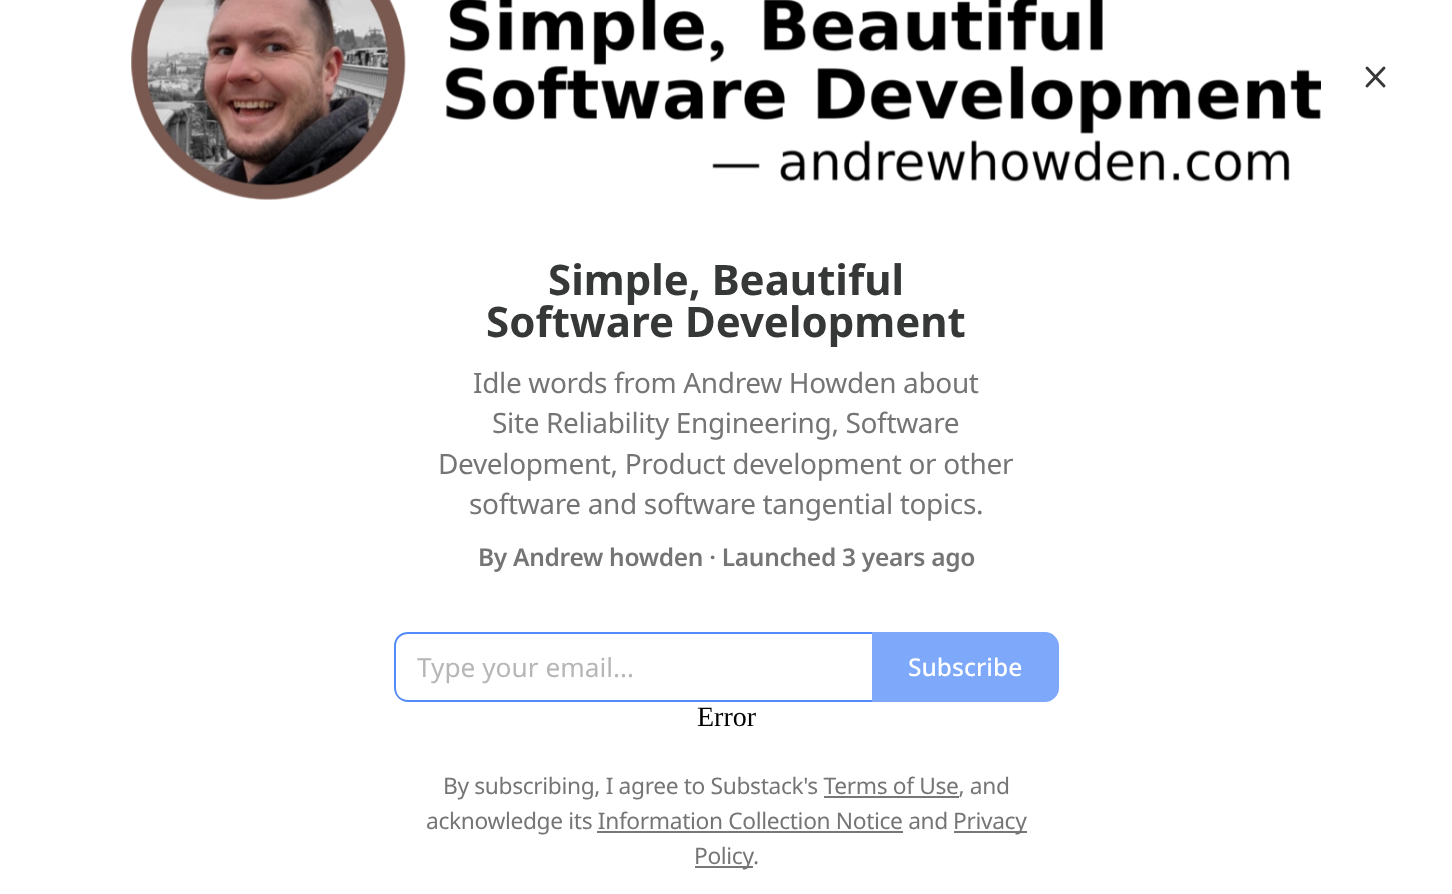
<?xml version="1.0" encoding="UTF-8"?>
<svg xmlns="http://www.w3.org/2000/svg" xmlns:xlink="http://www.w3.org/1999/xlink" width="1452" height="894">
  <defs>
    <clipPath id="clip1"><rect x="417" y="649" width="434" height="35" /></clipPath>
  </defs>
  <rect width="100%" height="100%" fill="#ffffff" />
  <image x="131" y="0" width="1190" height="200" xlink:href="image1.png" />
  <path d="M 1384 68 l -17 18 m 0 -18 l 17 18" fill="none" stroke="#363737" stroke-width="2.9" stroke-linecap="round" stroke-linejoin="round" />
  <path d="M 408 632 h 464 v 70 h -464 c -8 0 -14 -7 -14 -14 v -42 c 0 -8 6 -14 14 -14 z m 0 2 h 464 v 66 h -464 c -7 0 -12 -5 -12 -12 v -42 c 0 -7 5 -12 12 -12 z" fill="#538cfa" fill-rule="evenodd" />
  <path d="M 873 633 h 172 c 7 0 13 6 13 13 v 42 c 0 7 -6 13 -13 13 h -172 z" fill="#7ea9fb" stroke="#7ea9fb" stroke-width="2" />
  <rect x="954" y="831" width="73" height="2" fill="#777777" />
  <rect x="695" y="866" width="58" height="2" fill="#777777" />
  <text x="548" y="295" style="font-family: Noto Sans; font-size: 42px; font-weight: bold; fill: #363737">Simple, Beautiful</text>
  <text x="486" y="337" style="font-family: Noto Sans; font-size: 42px; font-weight: bold; fill: #363737">Software Development</text>
  <text x="473" y="393" style="font-family: Noto Sans; font-size: 28px; letter-spacing: -0.35px; fill: #757575">Idle words from Andrew Howden about</text>
  <text x="492" y="433" style="font-family: Noto Sans; font-size: 28px; letter-spacing: -0.35px; fill: #757575">Site Reliability Engineering, Software</text>
  <text x="438" y="474" style="font-family: Noto Sans; font-size: 28px; letter-spacing: -0.35px; fill: #757575">Development, Product development or other</text>
  <text x="469" y="514" style="font-family: Noto Sans; font-size: 28px; letter-spacing: -0.35px; fill: #757575">software and software tangential topics.</text>
  <text x="478" y="566" style="font-family: Noto Sans; font-size: 24.5px; font-weight: 600; letter-spacing: -0.3px; fill: #757575">By Andrew howden · Launched 3 years ago</text>
  <g clip-path="url(#clip1)">
    <text x="417" y="677" style="font-family: Noto Sans; font-size: 26.25px; fill: #b6b6b6">Type your email...</text>
  </g>
  <text x="908" y="676" style="font-family: Noto Sans; font-size: 24.5px; font-weight: 500; fill: #ffffff">Subscribe</text>
  <text x="697" y="726" style="font-family: Liberation Serif; font-size: 28px; fill: #000000">Error</text>
  <text x="443" y="794" style="font-family: Noto Sans; font-size: 22.75px; letter-spacing: -0.35px; fill: #757575">By subscribing, I agree to Substack's Terms of Use, and</text>
  <rect x="824" y="796" width="135" height="2" fill="#777777" />
  <text x="426" y="829" style="font-family: Noto Sans; font-size: 22.75px; letter-spacing: -0.35px; fill: #757575">acknowledge its Information Collection Notice and</text>
  <text x="953" y="829" style="font-family: Noto Sans; font-size: 22.75px; letter-spacing: -0.35px; fill: #757575">Privacy</text>
  <rect x="597" y="831" width="306" height="2" fill="#777777" />
  <text x="694" y="864" style="font-family: Noto Sans; font-size: 22.75px; letter-spacing: -0.35px; fill: #757575">Policy</text>
  <text x="753" y="864" style="font-family: Noto Sans; font-size: 22.75px; letter-spacing: -0.35px; fill: #757575">.</text>
</svg>
